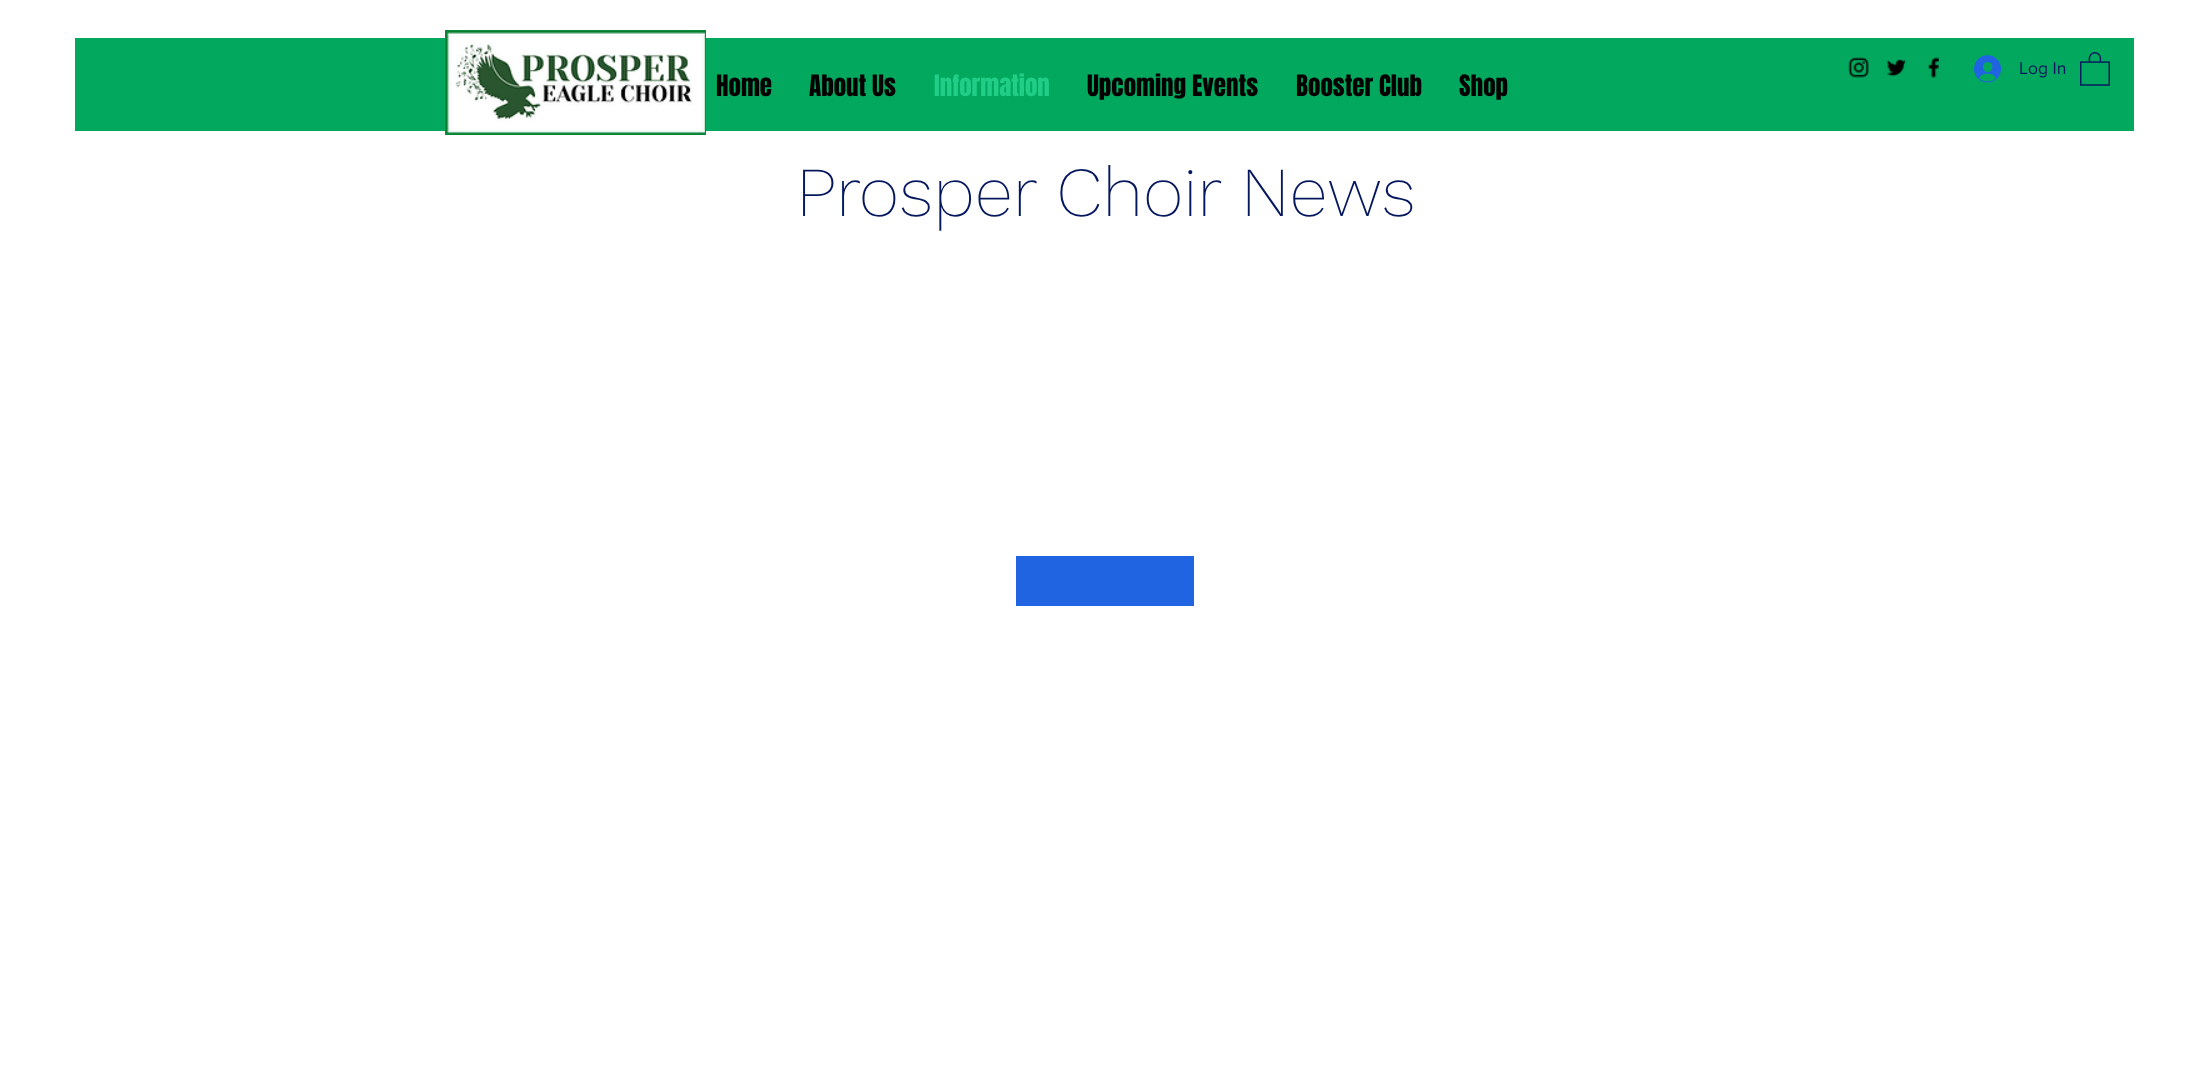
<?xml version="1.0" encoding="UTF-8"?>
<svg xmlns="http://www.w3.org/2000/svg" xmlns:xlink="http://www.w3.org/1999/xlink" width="2208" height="1070">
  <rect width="100%" height="100%" fill="#ffffff" />
  <image x="445" y="30" width="261" height="105" xlink:href="image1.png" />
  <rect x="75" y="38" width="370" height="93" fill="#02a85e" />
  <rect x="706" y="38" width="1428" height="93" fill="#02a85e" />
  <image x="1848" y="57" width="21" height="21" xlink:href="image2.png" />
  <image x="1886" y="59" width="21" height="18" xlink:href="image3.png" />
  <image x="1928" y="57" width="12" height="21" xlink:href="image4.png" />
  <image x="1974" y="55" width="27" height="28" xlink:href="image5.png" />
  <image x="2080" y="52" width="30" height="34" xlink:href="image6.png" />
  <rect x="1016" y="556" width="178" height="50" fill="#2064e2" />
  <text x="2019" y="74" style="font-family: 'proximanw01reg'; font-size: 17.5px; fill: #05185e">Log In</text>
  <text x="716" y="96" style="font-family: Anton; font-size: 25px; fill: #000000">Home</text>
  <text x="809" y="96" style="font-family: Anton; font-size: 25px; fill: #000000">About Us</text>
  <text x="934" y="96" style="font-family: Anton; font-size: 25px; fill: #20ce88">Information</text>
  <text x="1087" y="96" style="font-family: Anton; font-size: 25px; fill: #000000">Upcoming Events</text>
  <text x="1296" y="96" style="font-family: Anton; font-size: 25px; fill: #000000">Booster Club</text>
  <text x="1459" y="96" style="font-family: Anton; font-size: 25px; fill: #000000">Shop</text>
  <text x="796" y="216" style="font-family: Work Sans; font-size: 70px; font-weight: 200; fill: #05185e">Prosper Choir News</text>
</svg>
